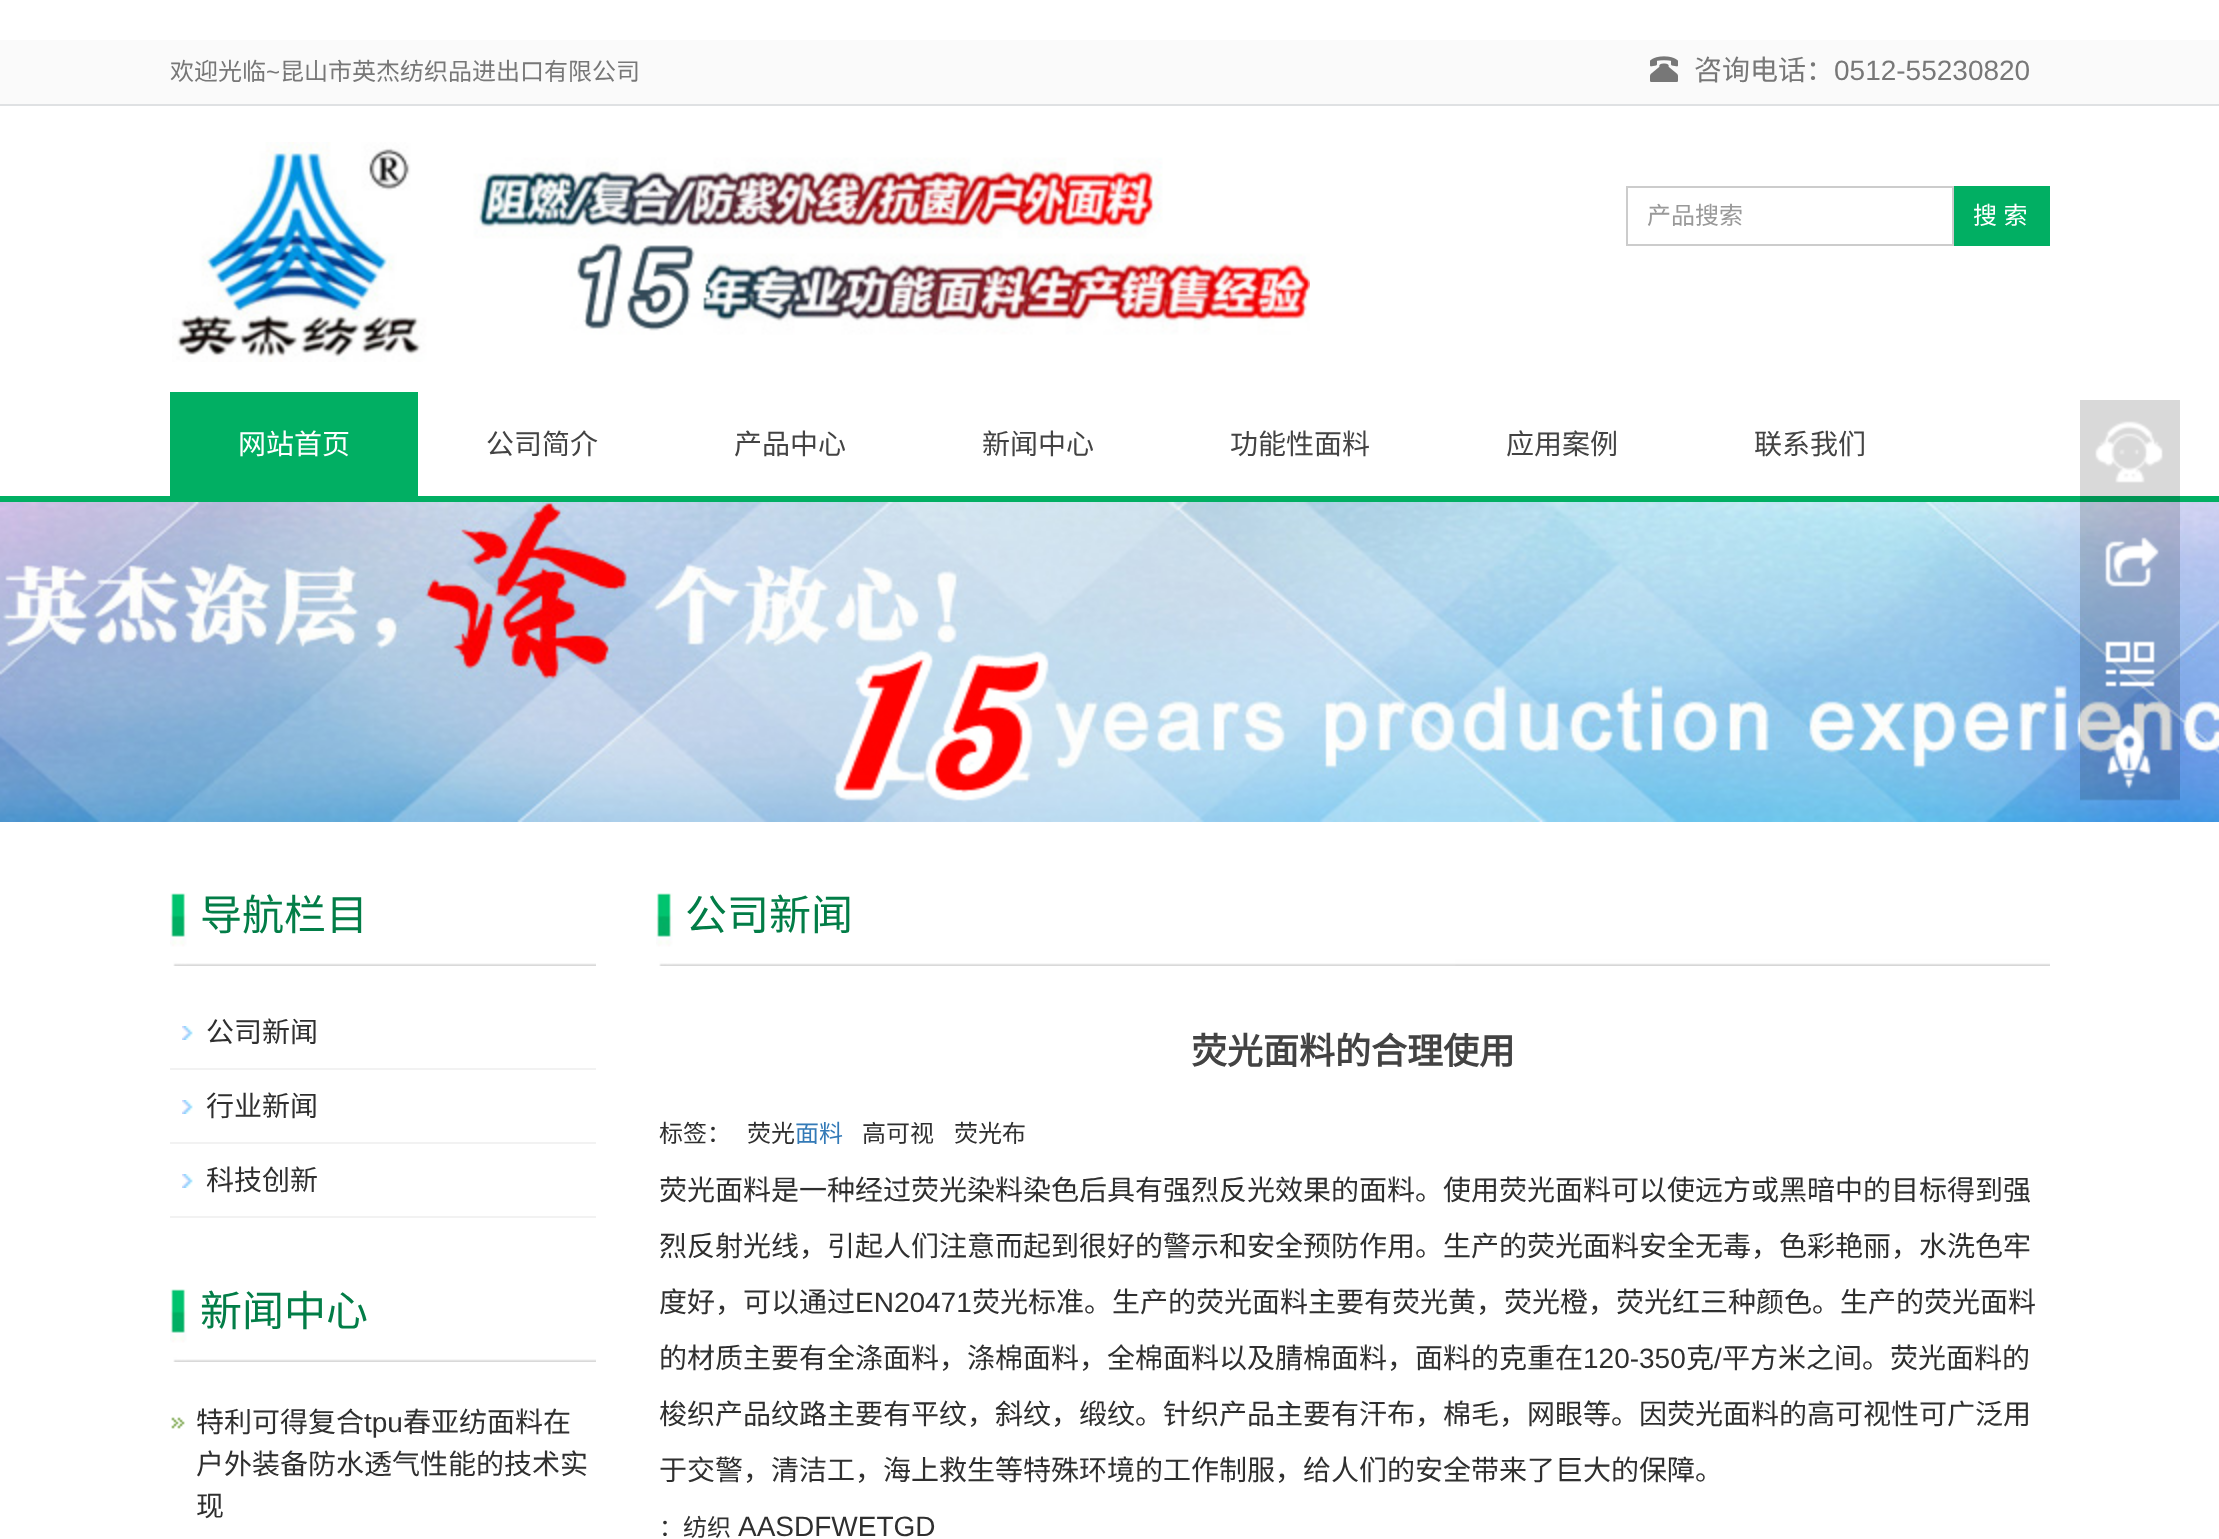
<?xml version="1.0" encoding="UTF-8"?>
<svg xmlns="http://www.w3.org/2000/svg" xmlns:xlink="http://www.w3.org/1999/xlink" width="2219" height="1539">
  <rect width="100%" height="100%" fill="#ffffff" />
  <rect y="40" width="2219" height="64" fill="#fafafa" />
  <rect y="104" width="2219" height="2" fill="#dfe1e3" />
  <image x="1650" y="56" width="28" height="26" xlink:href="image1.png" />
  <image x="172" y="142" width="1138" height="220" xlink:href="image2.png" />
  <rect x="1627" y="187" width="326" height="58" fill="none" stroke="#cccccc" stroke-width="2" />
  <rect x="1954" y="186" width="96" height="60" fill="#01af63" />
  <rect y="496" width="2219" height="6" fill="#01af63" />
  <rect x="170" y="392" width="248" height="104" fill="#01af63" />
  <image x="0" y="502" width="2219" height="320" xlink:href="image4.png" />
  <image x="2080" y="400" width="100" height="401" xlink:href="image3.png" />
  <image x="170" y="893" width="426" height="73" xlink:href="image5.png" />
  <image x="182" y="1026" width="11" height="14" xlink:href="image6.png" />
  <rect x="170" y="1068" width="426" height="2" fill="#f2f2f2" />
  <image x="182" y="1100" width="11" height="14" xlink:href="image6.png" />
  <rect x="170" y="1142" width="426" height="2" fill="#f2f2f2" />
  <image x="182" y="1174" width="11" height="14" xlink:href="image6.png" />
  <rect x="170" y="1216" width="426" height="2" fill="#f2f2f2" />
  <image x="170" y="1289" width="426" height="73" xlink:href="image5.png" />
  <image x="171" y="1417" width="14" height="12" xlink:href="image7.png" />
  <image x="656" y="893" width="1394" height="73" xlink:href="image8.png" />
  <text x="170" y="80" style="font-family: Noto Sans CJK SC; font-size: 24px; fill: #777777">欢迎光临</text>
  <text x="266" y="80" style="font-family: Liberation Sans; font-size: 24px; fill: #777777">~</text>
  <text x="280" y="80" style="font-family: Noto Sans CJK SC; font-size: 24px; fill: #777777">昆山市英杰纺织品进出口有限公司</text>
  <text x="1694" y="80" style="font-family: Noto Sans CJK SC; font-size: 28px; fill: #777777">咨询电话：</text>
  <text x="1834" y="80" style="font-family: Liberation Sans; font-size: 28px; fill: #777777">0512-55230820</text>
  <text x="1647" y="224" style="font-family: Noto Sans CJK SC; font-size: 24px; fill: #999999">产品搜索</text>
  <text x="1973" y="224" word-spacing="1" style="font-family: Noto Sans CJK SC; font-size: 24px; fill: #ffffff">搜 索</text>
  <text x="238" y="454" style="font-family: Noto Sans CJK SC; font-size: 28px; fill: #ffffff">网站首页</text>
  <text x="486" y="454" style="font-family: Noto Sans CJK SC; font-size: 28px; fill: #434343">公司简介</text>
  <text x="734" y="454" style="font-family: Noto Sans CJK SC; font-size: 28px; fill: #434343">产品中心</text>
  <text x="982" y="454" style="font-family: Noto Sans CJK SC; font-size: 28px; fill: #434343">新闻中心</text>
  <text x="1230" y="454" style="font-family: Noto Sans CJK SC; font-size: 28px; fill: #434343">功能性面料</text>
  <text x="1506" y="454" style="font-family: Noto Sans CJK SC; font-size: 28px; fill: #434343">应用案例</text>
  <text x="1754" y="454" style="font-family: Noto Sans CJK SC; font-size: 28px; fill: #434343">联系我们</text>
  <text x="200" y="930" style="font-family: Noto Sans CJK SC; font-size: 42px; fill: #027d47">导航栏目</text>
  <text x="206" y="1042" style="font-family: Noto Sans CJK SC; font-size: 28px; fill: #2f2f2f">公司新闻</text>
  <text x="206" y="1116" style="font-family: Noto Sans CJK SC; font-size: 28px; fill: #2f2f2f">行业新闻</text>
  <text x="206" y="1190" style="font-family: Noto Sans CJK SC; font-size: 28px; fill: #2f2f2f">科技创新</text>
  <text x="200" y="1326" style="font-family: Noto Sans CJK SC; font-size: 42px; fill: #027d47">新闻中心</text>
  <text x="196" y="1432" style="font-family: Noto Sans CJK SC; font-size: 28px; fill: #2f2f2f">特利可得复合</text>
  <text x="364" y="1432" style="font-family: Liberation Sans; font-size: 28px; fill: #2f2f2f">tpu</text>
  <text x="403" y="1432" style="font-family: Noto Sans CJK SC; font-size: 28px; fill: #2f2f2f">春亚纺面料在</text>
  <text x="196" y="1474" style="font-family: Noto Sans CJK SC; font-size: 28px; fill: #2f2f2f">户外装备防水透气性能的技术实</text>
  <text x="196" y="1516" style="font-family: Noto Sans CJK SC; font-size: 28px; fill: #2f2f2f">现</text>
  <text x="685" y="930" style="font-family: Noto Sans CJK SC; font-size: 42px; fill: #027d47">公司新闻</text>
  <text x="1191" y="1064" style="font-family: Noto Sans CJK SC; font-size: 36px; font-weight: bold; fill: #434343">荧光面料的合理使用</text>
  <text x="659" y="1142" style="font-family: Noto Sans CJK SC; font-size: 24px; fill: #2f2f2f">标签：</text>
  <text x="747" y="1142" style="font-family: Noto Sans CJK SC; font-size: 24px; fill: #2f2f2f">荧光</text>
  <text x="795" y="1142" style="font-family: Noto Sans CJK SC; font-size: 24px; fill: #337ab7">面料</text>
  <text x="862" y="1142" style="font-family: Noto Sans CJK SC; font-size: 24px; fill: #2f2f2f">高可视</text>
  <text x="954" y="1142" style="font-family: Noto Sans CJK SC; font-size: 24px; fill: #2f2f2f">荧光布</text>
  <text x="659" y="1200" style="font-family: Noto Sans CJK SC; font-size: 28px; fill: #2f2f2f">荧光面料是一种经过荧光染料染色后具有强烈反光效果的面料。使用荧光面料可以使远方或黑暗中的目标得到强</text>
  <text x="659" y="1256" style="font-family: Noto Sans CJK SC; font-size: 28px; fill: #2f2f2f">烈反射光线，引起人们注意而起到很好的警示和安全预防作用。生产的荧光面料安全无毒，色彩艳丽，水洗色牢</text>
  <text x="659" y="1312" style="font-family: Noto Sans CJK SC; font-size: 28px; fill: #2f2f2f">度好，可以通过</text>
  <text x="855" y="1312" style="font-family: Liberation Sans; font-size: 28px; fill: #2f2f2f">EN20471</text>
  <text x="972" y="1312" style="font-family: Noto Sans CJK SC; font-size: 28px; fill: #2f2f2f">荧光标准。生产的荧光面料主要有荧光黄，荧光橙，荧光红三种颜色。生产的荧光面料</text>
  <text x="659" y="1368" style="font-family: Noto Sans CJK SC; font-size: 28px; fill: #2f2f2f">的材质主要有全涤面料，涤棉面料，全棉面料以及腈棉面料，面料的克重在</text>
  <text x="1583" y="1368" style="font-family: Liberation Sans; font-size: 28px; fill: #2f2f2f">120-350</text>
  <text x="1686" y="1368" style="font-family: Noto Sans CJK SC; font-size: 28px; fill: #2f2f2f">克</text>
  <text x="1714" y="1368" style="font-family: Liberation Sans; font-size: 28px; fill: #2f2f2f">/</text>
  <text x="1722" y="1368" style="font-family: Noto Sans CJK SC; font-size: 28px; fill: #2f2f2f">平方米之间。荧光面料的</text>
  <text x="659" y="1424" style="font-family: Noto Sans CJK SC; font-size: 28px; fill: #2f2f2f">梭织产品纹路主要有平纹，斜纹，缎纹。针织产品主要有汗布，棉毛，网眼等。因荧光面料的高可视性可广泛用</text>
  <text x="659" y="1480" style="font-family: Noto Sans CJK SC; font-size: 28px; fill: #2f2f2f">于交警，清洁工，海上救生等特殊环境的工作制服，给人们的安全带来了巨大的保障。</text>
  <text x="659" y="1536" style="font-family: Noto Sans CJK SC; font-size: 24px; fill: #2f2f2f">：纺织</text>
  <text x="738" y="1536" style="font-family: Liberation Sans; font-size: 28px; fill: #2f2f2f">AASDFWETGD</text>
</svg>
